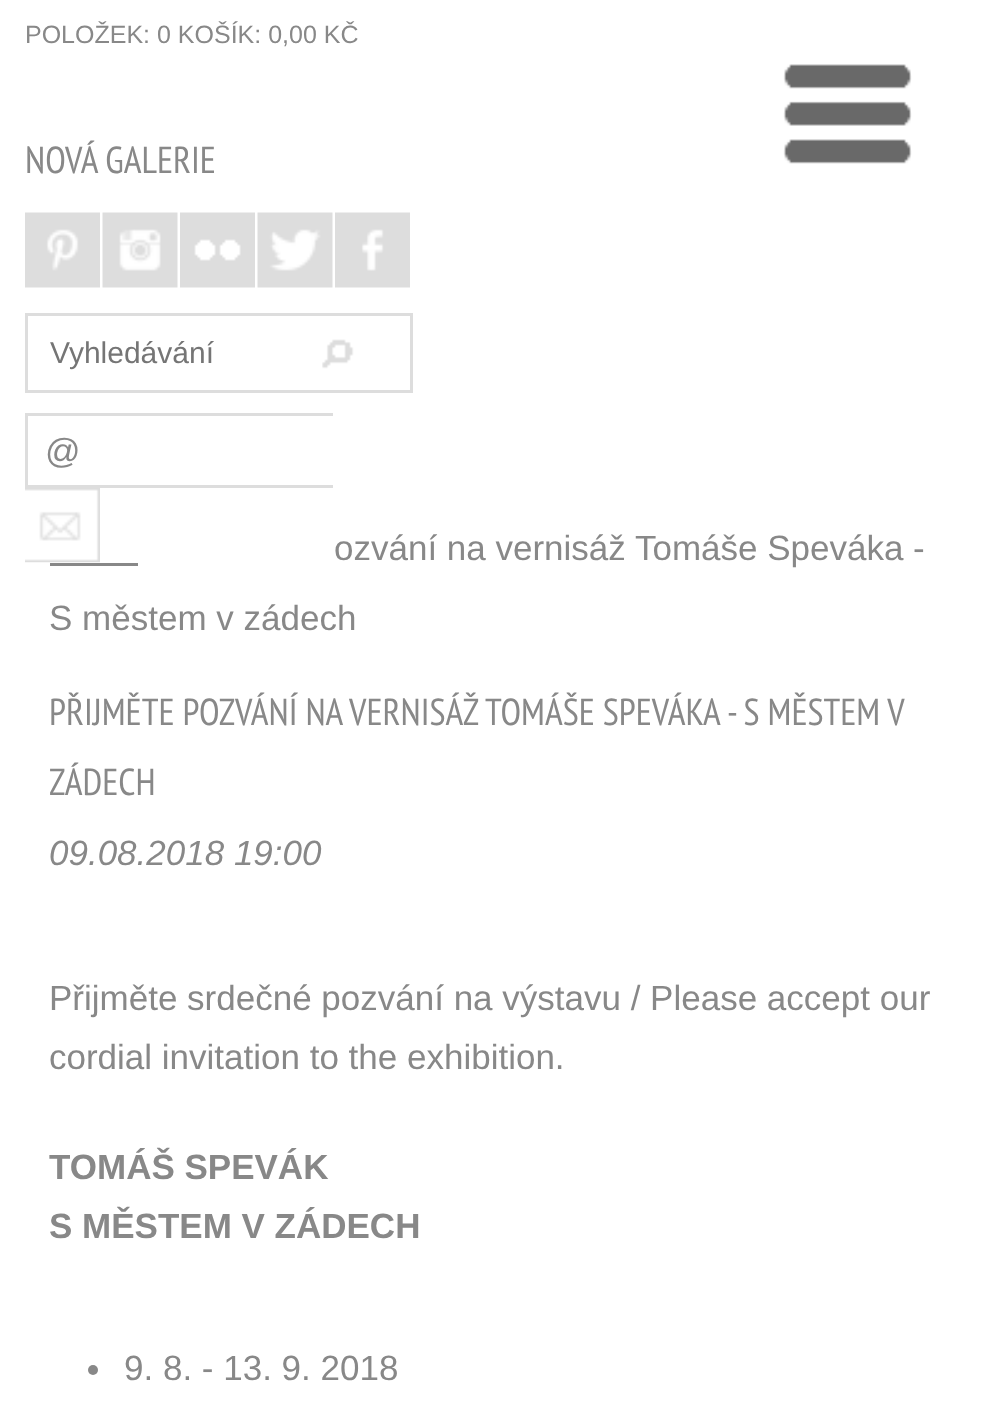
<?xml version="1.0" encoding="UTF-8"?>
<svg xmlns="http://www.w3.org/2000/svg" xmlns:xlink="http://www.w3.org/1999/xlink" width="984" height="1401">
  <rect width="100%" height="100%" fill="#ffffff" />
  <image x="783" y="64" width="129" height="100" xlink:href="image1.png" />
  <image x="25" y="212" width="75" height="76" xlink:href="image2.png" />
  <image x="102" y="212" width="76" height="76" xlink:href="image3.png" />
  <image x="180" y="212" width="75" height="76" xlink:href="image4.png" />
  <image x="257" y="212" width="76" height="76" xlink:href="image5.png" />
  <image x="335" y="212" width="75" height="76" xlink:href="image6.png" />
  <rect x="26.5" y="314.5" width="385" height="77" fill="none" stroke="#dddddd" stroke-width="3" />
  <image x="322" y="339" width="32" height="30" xlink:href="image7.png" />
  <rect x="25" y="413" width="308" height="3" fill="#dddddd" />
  <rect x="25" y="485" width="308" height="3" fill="#dddddd" />
  <rect x="25" y="413" width="3" height="75" fill="#dddddd" />
  <image x="25" y="488" width="75" height="75" xlink:href="image8.png" />
  <rect x="50" y="563" width="88" height="3" fill="#888888" />
  <circle cx="93" cy="1370" r="5" fill="#888888" />
  <text x="25" y="43" style="font-family: Liberation Sans; font-size: 25px; fill: #888888">POLOŽEK: 0 KOŠÍK: 0,00 KČ</text>
  <text x="25" y="173" style="font-family: PT Sans Narrow; font-size: 37.5px; fill: #888888">NOVÁ GALERIE</text>
  <text x="50" y="363" style="font-family: Liberation Sans; font-size: 30px; fill: #757575">Vyhledávání</text>
  <text x="45" y="463" style="font-family: Liberation Sans; font-size: 35px; fill: #888888">@</text>
  <text x="334" y="560" style="font-family: Liberation Sans; font-size: 35px; fill: #888888">ozvání na vernisáž Tomáše Speváka -</text>
  <text x="49" y="630" style="font-family: Liberation Sans; font-size: 35px; fill: #888888">S městem v zádech</text>
  <text x="49" y="725" style="font-family: PT Sans Narrow; font-size: 37.5px; fill: #888888">PŘIJMĚTE POZVÁNÍ NA VERNISÁŽ TOMÁŠE SPEVÁKA - S MĚSTEM V</text>
  <text x="49" y="795" style="font-family: PT Sans Narrow; font-size: 37.5px; fill: #888888">ZÁDECH</text>
  <text x="49" y="865" style="font-family: Liberation Sans; font-size: 35px; font-style: italic; fill: #888888">09.08.2018 19:00</text>
  <text x="49" y="1010" style="font-family: Liberation Sans; font-size: 35px; fill: #888888">Přijměte srdečné pozvání na výstavu / Please accept our</text>
  <text x="49" y="1069" style="font-family: Liberation Sans; font-size: 35px; fill: #888888">cordial invitation to the exhibition.</text>
  <text x="49" y="1179" style="font-family: Liberation Sans; font-size: 35px; font-weight: bold; fill: #888888">TOMÁŠ SPEVÁK</text>
  <text x="49" y="1238" style="font-family: Liberation Sans; font-size: 35px; font-weight: bold; fill: #888888">S MĚSTEM V ZÁDECH</text>
  <text x="124" y="1380" style="font-family: Liberation Sans; font-size: 35px; fill: #888888">9. 8. - 13. 9. 2018</text>
</svg>
